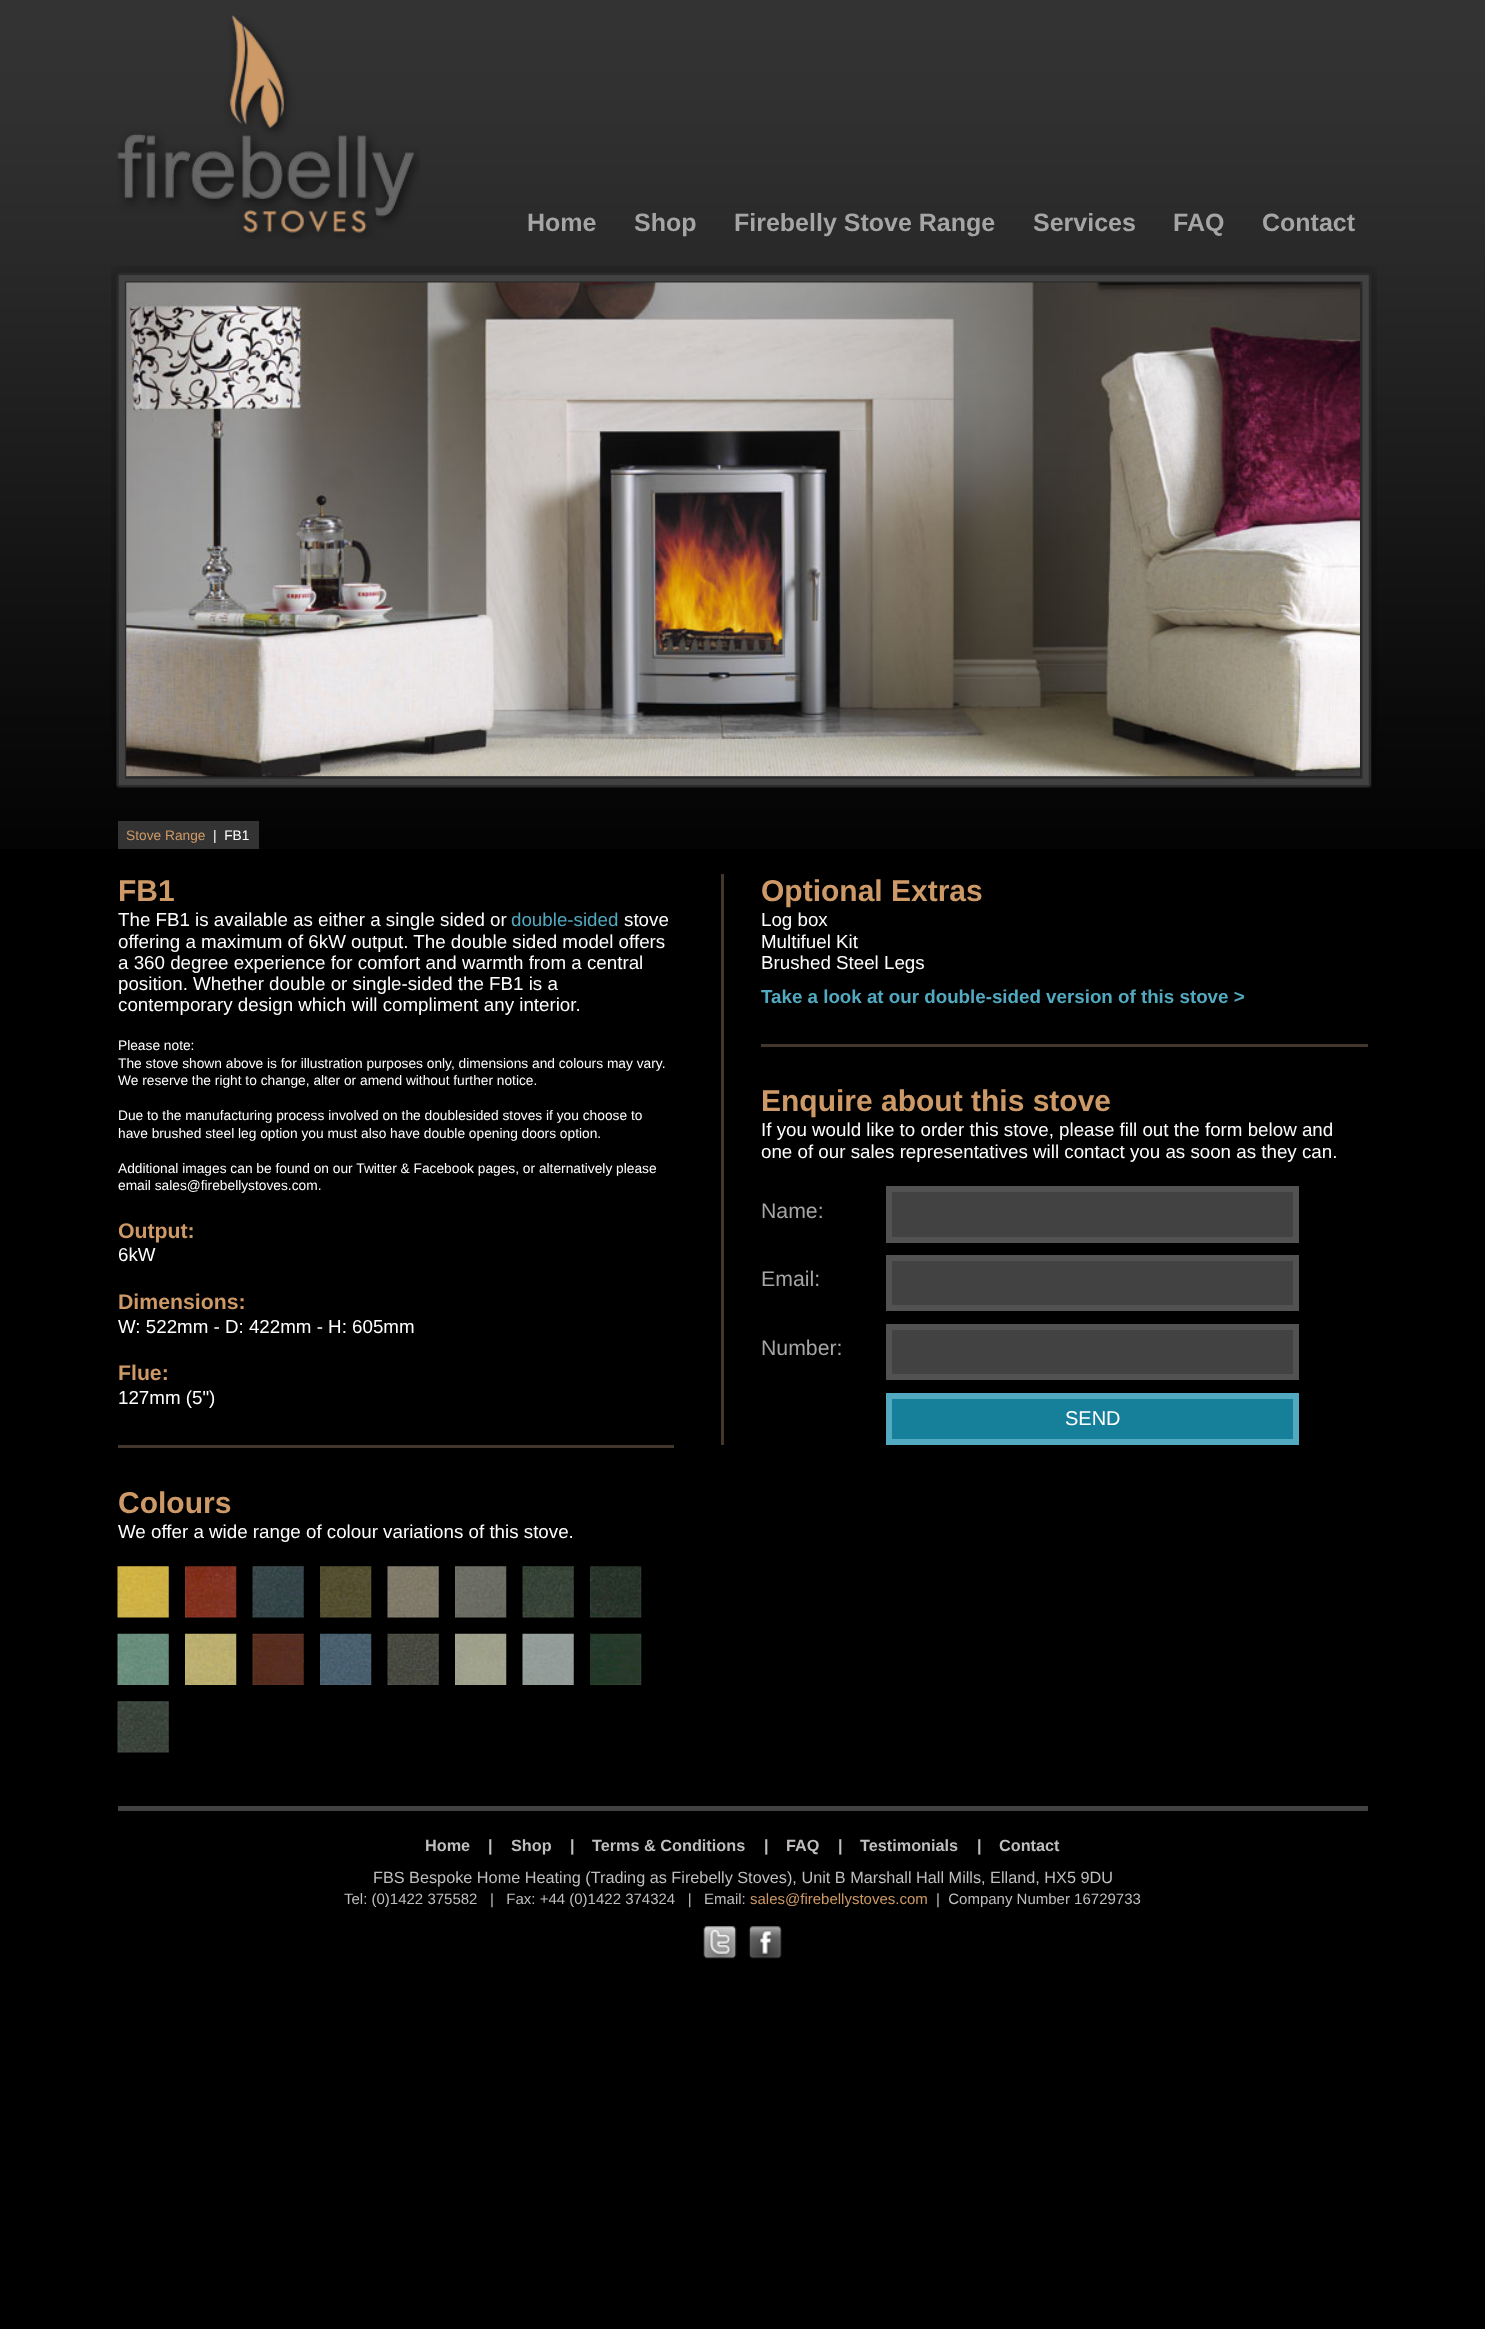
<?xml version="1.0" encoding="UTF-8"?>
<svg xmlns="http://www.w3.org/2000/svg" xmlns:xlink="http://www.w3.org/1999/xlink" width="1485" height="2329">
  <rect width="100%" height="100%" fill="#000000" />
  <image x="0" y="0" width="1485" height="849" xlink:href="image1.png" />
  <image x="117" y="15" width="303" height="224" xlink:href="image2.png" />
  <image x="111" y="266" width="1266" height="522" xlink:href="image3.png" />
  <image x="126" y="282" width="1234" height="495" xlink:href="image4.png" />
  <rect x="118" y="821" width="141" height="28" fill="#333333" />
  <rect x="118" y="1445" width="556" height="3" fill="#43362a" />
  <image x="117" y="1566" width="52" height="52" xlink:href="image5.png" />
  <image x="185" y="1566" width="52" height="52" xlink:href="image6.png" />
  <image x="252" y="1566" width="52" height="52" xlink:href="image7.png" />
  <image x="320" y="1566" width="52" height="52" xlink:href="image8.png" />
  <image x="387" y="1566" width="52" height="52" xlink:href="image9.png" />
  <image x="455" y="1566" width="52" height="52" xlink:href="image10.png" />
  <image x="522" y="1566" width="52" height="52" xlink:href="image11.png" />
  <image x="590" y="1566" width="52" height="52" xlink:href="image12.png" />
  <image x="117" y="1633" width="52" height="52" xlink:href="image13.png" />
  <image x="185" y="1633" width="52" height="52" xlink:href="image14.png" />
  <image x="252" y="1633" width="52" height="52" xlink:href="image15.png" />
  <image x="320" y="1633" width="52" height="52" xlink:href="image16.png" />
  <image x="387" y="1633" width="52" height="52" xlink:href="image17.png" />
  <image x="455" y="1633" width="52" height="52" xlink:href="image18.png" />
  <image x="522" y="1633" width="52" height="52" xlink:href="image19.png" />
  <image x="590" y="1633" width="52" height="52" xlink:href="image20.png" />
  <image x="117" y="1701" width="52" height="52" xlink:href="image21.png" />
  <rect x="721" y="874" width="3" height="571" fill="#43362a" />
  <rect x="761" y="1044" width="607" height="3" fill="#43362a" />
  <rect x="889" y="1189" width="407" height="51" fill="#424242" stroke="#525252" stroke-width="6" />
  <rect x="889" y="1258" width="407" height="50" fill="#424242" stroke="#525252" stroke-width="6" />
  <rect x="889" y="1327" width="407" height="50" fill="#424242" stroke="#525252" stroke-width="6" />
  <rect x="889" y="1396" width="407" height="46" fill="#16809b" stroke="#52aac0" stroke-width="6" />
  <rect x="118" y="1806" width="1250" height="5" fill="#424242" />
  <image x="703" y="1926" width="34" height="33" xlink:href="image22.png" />
  <image x="748" y="1926" width="34" height="33" xlink:href="image23.png" />
  <text x="527" y="231" style="font-family: Liberation Sans; font-size: 25px; font-weight: bold; fill: #a6a5a5">Home</text>
  <text x="634" y="231" style="font-family: Liberation Sans; font-size: 25px; font-weight: bold; fill: #a6a5a5">Shop</text>
  <text x="734" y="231" style="font-family: Liberation Sans; font-size: 25px; font-weight: bold; fill: #a6a5a5">Firebelly Stove Range</text>
  <text x="1033" y="231" style="font-family: Liberation Sans; font-size: 25px; font-weight: bold; fill: #a6a5a5">Services</text>
  <text x="1173" y="231" style="font-family: Liberation Sans; font-size: 25px; font-weight: bold; fill: #a6a5a5">FAQ</text>
  <text x="1262" y="231" style="font-family: Liberation Sans; font-size: 25px; font-weight: bold; fill: #a6a5a5">Contact</text>
  <text x="126" y="840" style="font-family: Liberation Sans; font-size: 13.75px; fill: #cd9967">Stove Range</text>
  <text x="213" y="840" style="font-family: Liberation Sans; font-size: 13.75px; fill: #ffffff" xml:space="preserve">|  FB1</text>
  <text x="118" y="901" style="font-family: Liberation Sans; font-size: 30px; font-weight: bold; fill: #cd9967">FB1</text>
  <text x="118" y="926" style="font-family: Liberation Sans; font-size: 18.75px; fill: #ffffff">The FB1 is available as either a single sided or</text>
  <text x="511" y="926" style="font-family: Liberation Sans; font-size: 18.75px; fill: #52aac0">double-sided</text>
  <text x="624" y="926" style="font-family: Liberation Sans; font-size: 18.75px; fill: #ffffff">stove</text>
  <text x="118" y="948" style="font-family: Liberation Sans; font-size: 18.75px; fill: #ffffff">offering a maximum of 6kW output. The double sided model offers</text>
  <text x="118" y="969" style="font-family: Liberation Sans; font-size: 18.75px; fill: #ffffff">a 360 degree experience for comfort and warmth from a central</text>
  <text x="118" y="990" style="font-family: Liberation Sans; font-size: 18.75px; fill: #ffffff">position. Whether double or single-sided the FB1 is a</text>
  <text x="118" y="1011" style="font-family: Liberation Sans; font-size: 18.75px; fill: #ffffff">contemporary design which will compliment any interior.</text>
  <text x="118" y="1050" style="font-family: Liberation Sans; font-size: 13.75px; fill: #ffffff">Please note:</text>
  <text x="118" y="1068" style="font-family: Liberation Sans; font-size: 13.75px; fill: #ffffff">The stove shown above is for illustration purposes only, dimensions and colours may vary.</text>
  <text x="118" y="1085" style="font-family: Liberation Sans; font-size: 13.75px; fill: #ffffff">We reserve the right to change, alter or amend without further notice.</text>
  <text x="118" y="1120" style="font-family: Liberation Sans; font-size: 13.75px; fill: #ffffff">Due to the manufacturing process involved on the doublesided stoves if you choose to</text>
  <text x="118" y="1138" style="font-family: Liberation Sans; font-size: 13.75px; fill: #ffffff">have brushed steel leg option you must also have double opening doors option.</text>
  <text x="118" y="1173" style="font-family: Liberation Sans; font-size: 13.75px; fill: #ffffff">Additional images can be found on our Twitter &amp; Facebook pages, or alternatively please</text>
  <text x="118" y="1190" style="font-family: Liberation Sans; font-size: 13.75px; fill: #ffffff">email sales@firebellystoves.com.</text>
  <text x="118" y="1238" style="font-family: Liberation Sans; font-size: 21.25px; font-weight: bold; fill: #cd9967">Output:</text>
  <text x="118" y="1261" style="font-family: Liberation Sans; font-size: 18.75px; fill: #ffffff">6kW</text>
  <text x="118" y="1309" style="font-family: Liberation Sans; font-size: 21.25px; font-weight: bold; fill: #cd9967">Dimensions:</text>
  <text x="118" y="1333" style="font-family: Liberation Sans; font-size: 18.75px; fill: #ffffff">W: 522mm - D: 422mm - H: 605mm</text>
  <text x="118" y="1380" style="font-family: Liberation Sans; font-size: 21.25px; font-weight: bold; fill: #cd9967">Flue:</text>
  <text x="118" y="1404" style="font-family: Liberation Sans; font-size: 18.75px; fill: #ffffff">127mm (5")</text>
  <text x="118" y="1513" style="font-family: Liberation Sans; font-size: 30px; font-weight: bold; fill: #cd9967">Colours</text>
  <text x="118" y="1538" style="font-family: Liberation Sans; font-size: 18.75px; fill: #ffffff">We offer a wide range of colour variations of this stove.</text>
  <text x="761" y="901" style="font-family: Liberation Sans; font-size: 30px; font-weight: bold; fill: #cd9967">Optional Extras</text>
  <text x="761" y="926" style="font-family: Liberation Sans; font-size: 18.75px; fill: #ffffff">Log box</text>
  <text x="761" y="948" style="font-family: Liberation Sans; font-size: 18.75px; fill: #ffffff">Multifuel Kit</text>
  <text x="761" y="969" style="font-family: Liberation Sans; font-size: 18.75px; fill: #ffffff">Brushed Steel Legs</text>
  <text x="761" y="1003" style="font-family: Liberation Sans; font-size: 18.75px; font-weight: bold; fill: #52aac0">Take a look at our double-sided version of this stove &gt;</text>
  <text x="761" y="1111" style="font-family: Liberation Sans; font-size: 30px; font-weight: bold; fill: #cd9967">Enquire about this stove</text>
  <text x="761" y="1136" style="font-family: Liberation Sans; font-size: 18.75px; fill: #ffffff">If you would like to order this stove, please fill out the form below and</text>
  <text x="761" y="1158" style="font-family: Liberation Sans; font-size: 18.75px; fill: #ffffff">one of our sales representatives will contact you as soon as they can.</text>
  <text x="761" y="1218" style="font-family: Liberation Sans; font-size: 21.25px; fill: #a6a5a5">Name:</text>
  <text x="761" y="1286" style="font-family: Liberation Sans; font-size: 21.25px; fill: #a6a5a5">Email:</text>
  <text x="761" y="1355" style="font-family: Liberation Sans; font-size: 21.25px; fill: #a6a5a5">Number:</text>
  <text x="1065" y="1425" style="font-family: Liberation Sans; font-size: 20px; fill: #ffffff">SEND</text>
  <text x="425" y="1851" style="font-family: Liberation Sans; font-size: 16.25px; font-weight: bold; fill: #c0bebe">Home</text>
  <text x="488" y="1851" style="font-family: Liberation Sans; font-size: 16.25px; font-weight: bold; fill: #c0bebe">|</text>
  <text x="511" y="1851" style="font-family: Liberation Sans; font-size: 16.25px; font-weight: bold; fill: #c0bebe">Shop</text>
  <text x="570" y="1851" style="font-family: Liberation Sans; font-size: 16.25px; font-weight: bold; fill: #c0bebe">|</text>
  <text x="592" y="1851" style="font-family: Liberation Sans; font-size: 16.25px; font-weight: bold; fill: #c0bebe">Terms &amp; Conditions</text>
  <text x="764" y="1851" style="font-family: Liberation Sans; font-size: 16.25px; font-weight: bold; fill: #c0bebe">|</text>
  <text x="786" y="1851" style="font-family: Liberation Sans; font-size: 16.25px; font-weight: bold; fill: #c0bebe">FAQ</text>
  <text x="838" y="1851" style="font-family: Liberation Sans; font-size: 16.25px; font-weight: bold; fill: #c0bebe">|</text>
  <text x="860" y="1851" style="font-family: Liberation Sans; font-size: 16.25px; font-weight: bold; fill: #c0bebe">Testimonials</text>
  <text x="977" y="1851" style="font-family: Liberation Sans; font-size: 16.25px; font-weight: bold; fill: #c0bebe">|</text>
  <text x="999" y="1851" style="font-family: Liberation Sans; font-size: 16.25px; font-weight: bold; fill: #c0bebe">Contact</text>
  <text x="373" y="1883" style="font-family: Liberation Sans; font-size: 16.25px; fill: #c0bebe">FBS Bespoke Home Heating (Trading as Firebelly Stoves), Unit B Marshall Hall Mills, Elland, HX5 9DU</text>
  <text x="344" y="1904" style="font-family: Liberation Sans; font-size: 15px; fill: #c0bebe" xml:space="preserve">Tel: (0)1422 375582   |   Fax: +44 (0)1422 374324   |   Email:</text>
  <text x="750" y="1904" style="font-family: Liberation Sans; font-size: 15px; fill: #cd9967">sales@firebellystoves.com</text>
  <text x="936" y="1904" style="font-family: Liberation Sans; font-size: 15px; fill: #c0bebe" xml:space="preserve">|  Company Number 16729733</text>
</svg>
